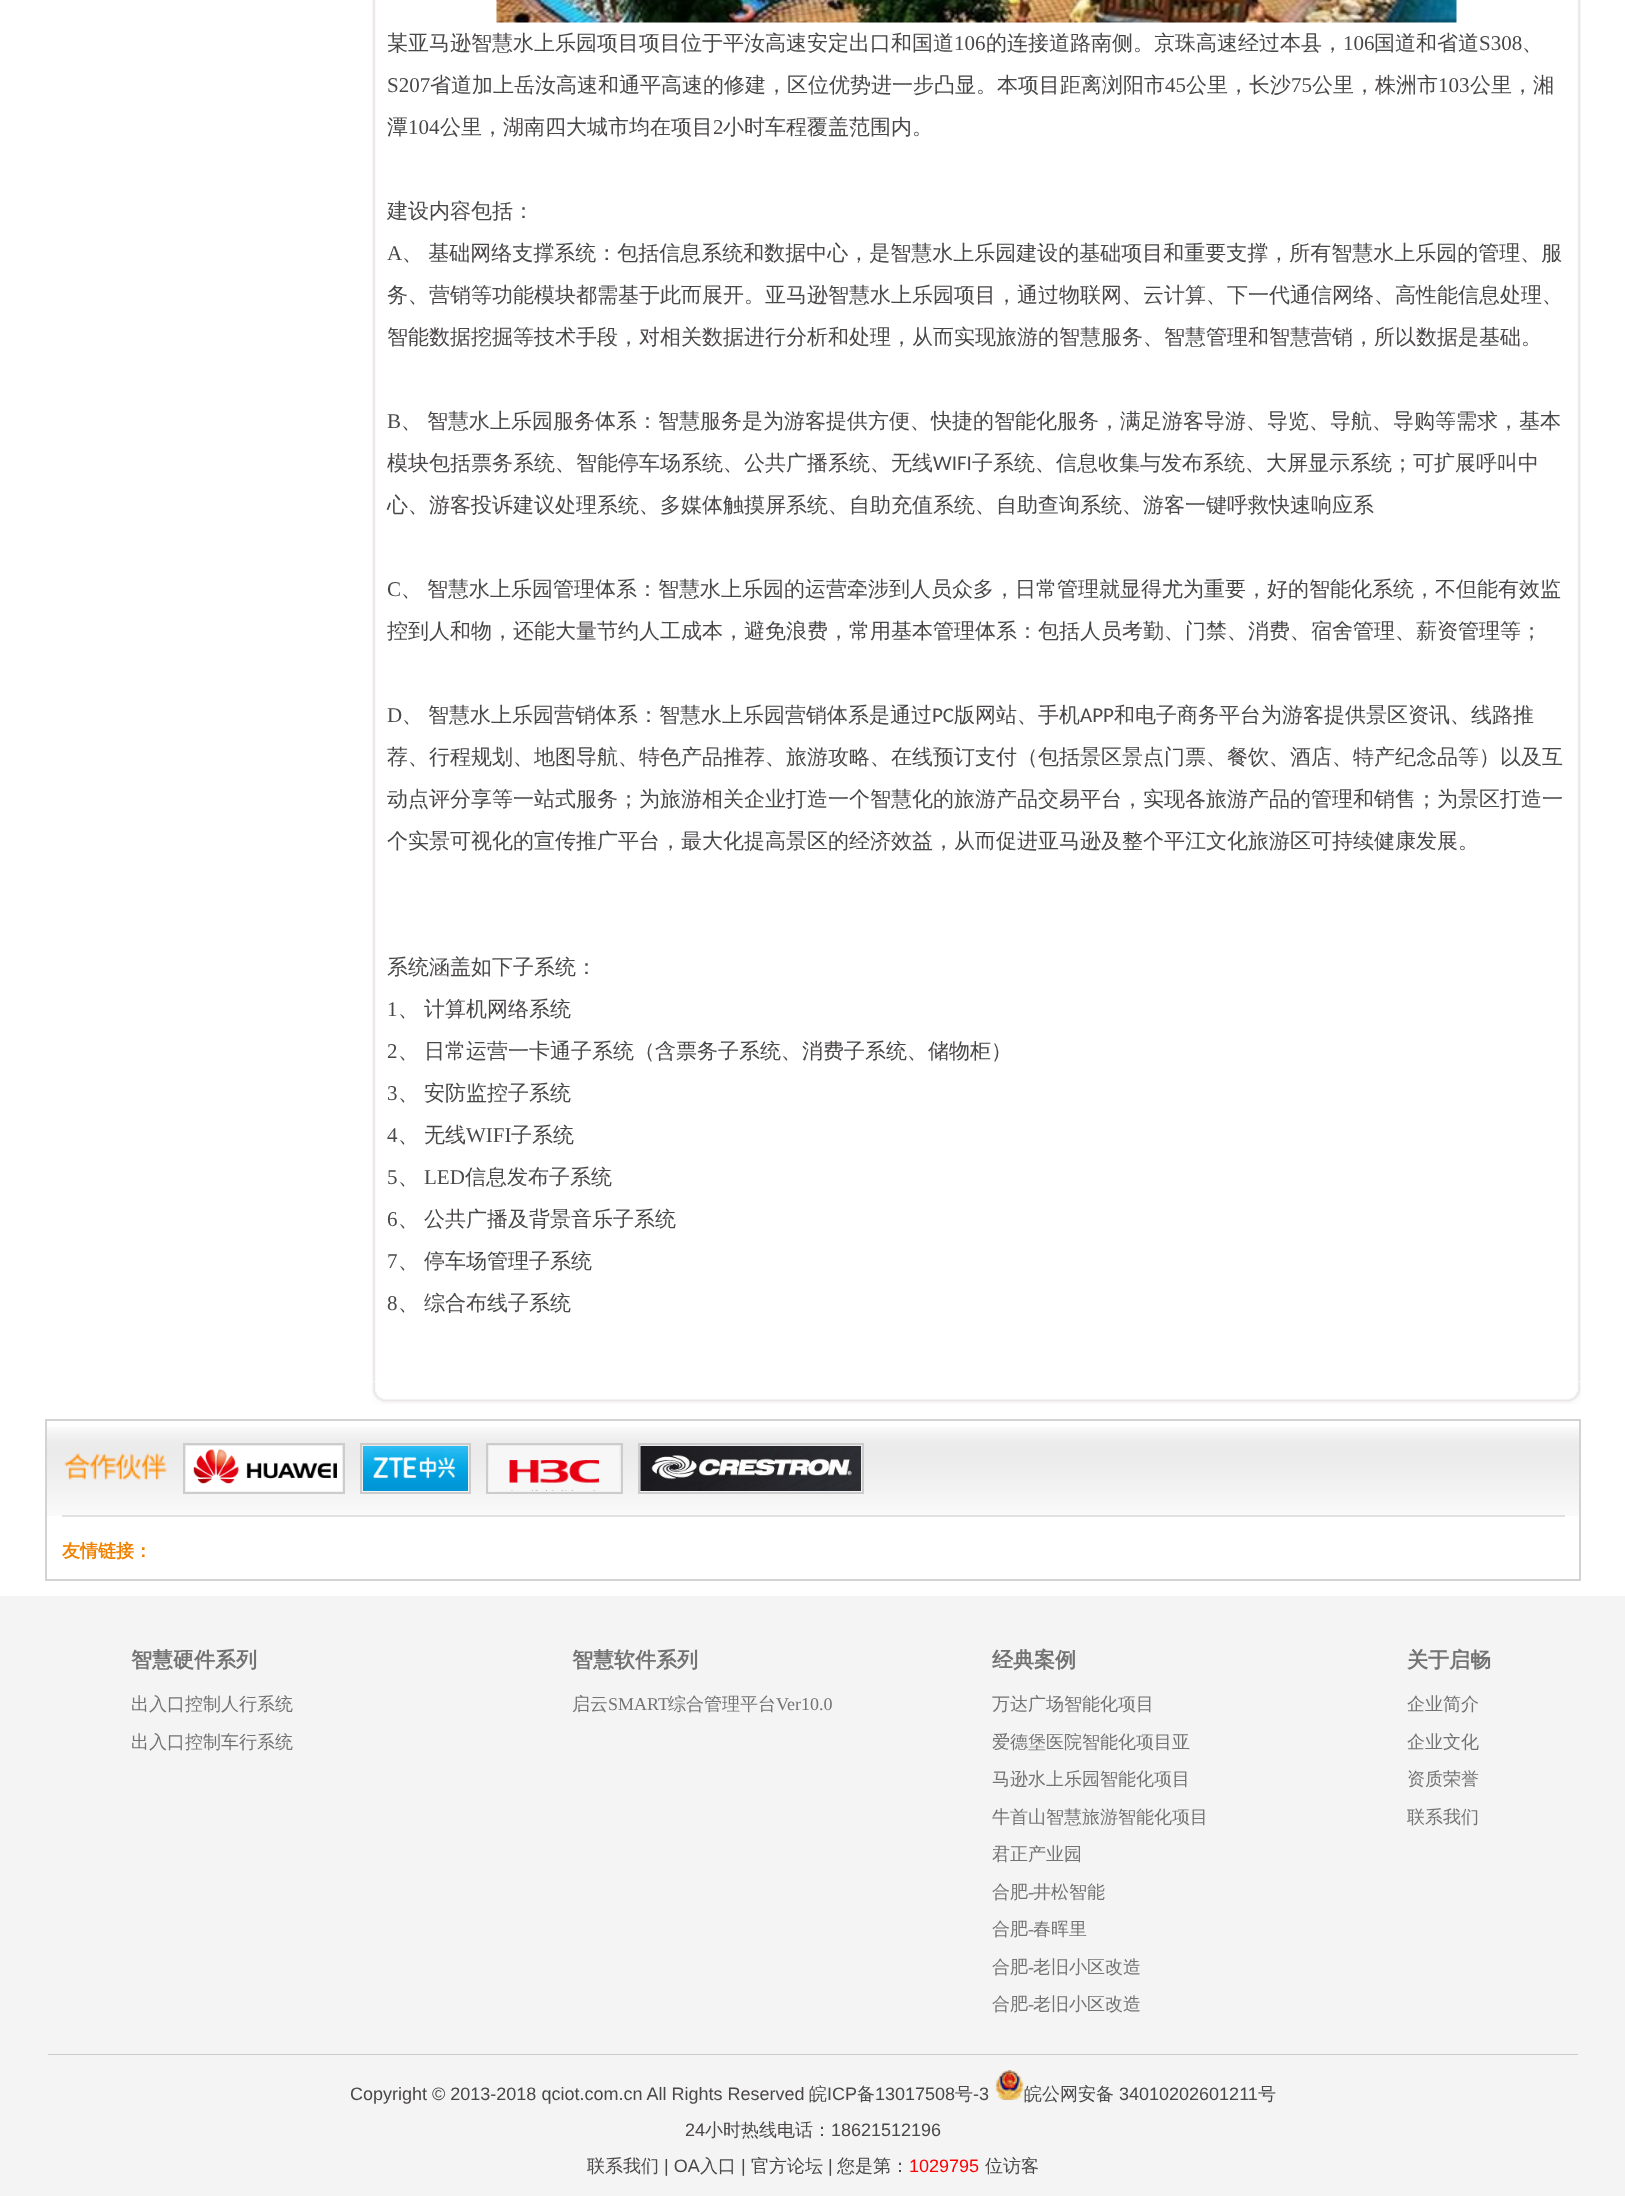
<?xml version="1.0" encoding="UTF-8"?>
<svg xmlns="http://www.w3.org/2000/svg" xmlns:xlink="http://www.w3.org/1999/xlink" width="1625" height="2196">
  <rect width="100%" height="100%" fill="#ffffff" />
  <image x="372" y="0" width="1209" height="1382" xlink:href="image1.png" />
  <image x="496" y="0" width="961" height="23" xlink:href="image2.png" />
  <image x="372" y="1382" width="1209" height="22" xlink:href="image3.png" />
  <image x="47" y="1427" width="1532" height="89" xlink:href="image4.png" />
  <rect x="46" y="1420" width="1534" height="160" fill="none" stroke="#d3d3d3" stroke-width="2" />
  <rect x="62" y="1515" width="1503" height="2" fill="#e1e1e1" />
  <image x="64" y="1453" width="103" height="27" xlink:href="image5.png" />
  <rect x="184" y="1444" width="160" height="49" fill="none" stroke="#cccccc" stroke-width="2" />
  <image x="186" y="1446" width="156" height="45" xlink:href="image6.png" />
  <rect x="361" y="1444" width="109" height="49" fill="none" stroke="#cccccc" stroke-width="2" />
  <image x="363" y="1446" width="105" height="45" xlink:href="image7.png" />
  <rect x="487" y="1444" width="135" height="49" fill="none" stroke="#cccccc" stroke-width="2" />
  <image x="489" y="1446" width="131" height="45" xlink:href="image8.png" />
  <rect x="639" y="1444" width="224" height="49" fill="none" stroke="#cccccc" stroke-width="2" />
  <image x="640" y="1446" width="221" height="45" xlink:href="image9.png" />
  <rect y="1596" width="1625" height="600" fill="#f4f4f4" />
  <rect x="48" y="2054" width="1530" height="1" fill="#cccccc" />
  <image x="995" y="2070" width="29" height="30" xlink:href="image10.png" />
  <text x="387" y="50" style="font-family: WenQuanYi Zen Hei; font-size: 21px; font-weight: 500; fill: #4a4747">某亚马逊智慧水上乐园项目项目位于平汝高速安定出口和国道</text>
  <text x="954" y="50" style="font-family: Liberation Serif; font-size: 21px; fill: #4a4747">106</text>
  <text x="986" y="50" style="font-family: WenQuanYi Zen Hei; font-size: 21px; font-weight: 500; fill: #4a4747">的连接道路南侧。京珠高速经过本县，</text>
  <text x="1343" y="50" style="font-family: Liberation Serif; font-size: 21px; fill: #4a4747">106</text>
  <text x="1374" y="50" style="font-family: WenQuanYi Zen Hei; font-size: 21px; font-weight: 500; fill: #4a4747">国道和省道</text>
  <text x="1479" y="50" style="font-family: Liberation Serif; font-size: 21px; fill: #4a4747">S308</text>
  <text x="1522" y="50" style="font-family: WenQuanYi Zen Hei; font-size: 21px; font-weight: 500; fill: #4a4747">、</text>
  <text x="387" y="92" style="font-family: Liberation Serif; font-size: 21px; fill: #4a4747">S207</text>
  <text x="430" y="92" style="font-family: WenQuanYi Zen Hei; font-size: 21px; font-weight: 500; fill: #4a4747">省道加上岳汝高速和通平高速的修建，区位优势进一步凸显。本项目距离浏阳市</text>
  <text x="1165" y="92" style="font-family: Liberation Serif; font-size: 21px; fill: #4a4747">45</text>
  <text x="1186" y="92" style="font-family: WenQuanYi Zen Hei; font-size: 21px; font-weight: 500; fill: #4a4747">公里，长沙</text>
  <text x="1291" y="92" style="font-family: Liberation Serif; font-size: 21px; fill: #4a4747">75</text>
  <text x="1312" y="92" style="font-family: WenQuanYi Zen Hei; font-size: 21px; font-weight: 500; fill: #4a4747">公里，株洲市</text>
  <text x="1438" y="92" style="font-family: Liberation Serif; font-size: 21px; fill: #4a4747">103</text>
  <text x="1470" y="92" style="font-family: WenQuanYi Zen Hei; font-size: 21px; font-weight: 500; fill: #4a4747">公里，湘</text>
  <text x="387" y="134" style="font-family: WenQuanYi Zen Hei; font-size: 21px; font-weight: 500; fill: #4a4747">潭</text>
  <text x="408" y="134" style="font-family: Liberation Serif; font-size: 21px; fill: #4a4747">104</text>
  <text x="440" y="134" style="font-family: WenQuanYi Zen Hei; font-size: 21px; font-weight: 500; fill: #4a4747">公里，湖南四大城市均在项目</text>
  <text x="713" y="134" style="font-family: Liberation Serif; font-size: 21px; fill: #4a4747">2</text>
  <text x="723" y="134" style="font-family: WenQuanYi Zen Hei; font-size: 21px; font-weight: 500; fill: #4a4747">小时车程覆盖范围内。</text>
  <text x="387" y="218" style="font-family: WenQuanYi Zen Hei; font-size: 21px; font-weight: 500; fill: #4a4747">建设内容包括：</text>
  <text x="387" y="260" style="font-family: Liberation Serif; font-size: 21px; fill: #4a4747">A</text>
  <text x="402" y="260" word-spacing="-1" style="font-family: WenQuanYi Zen Hei; font-size: 21px; font-weight: 500; fill: #4a4747">、 基础网络支撑系统：包括信息系统和数据中心，是智慧水上乐园建设的基础项目和重要支撑，所有智慧水上乐园的管理、服</text>
  <text x="387" y="302" style="font-family: WenQuanYi Zen Hei; font-size: 21px; font-weight: 500; fill: #4a4747">务、营销等功能模块都需基于此而展开。亚马逊智慧水上乐园项目，通过物联网、云计算、下一代通信网络、高性能信息处理、</text>
  <text x="387" y="344" style="font-family: WenQuanYi Zen Hei; font-size: 21px; font-weight: 500; fill: #4a4747">智能数据挖掘等技术手段，对相关数据进行分析和处理，从而实现旅游的智慧服务、智慧管理和智慧营销，所以数据是基础。</text>
  <text x="387" y="428" style="font-family: Liberation Serif; font-size: 21px; fill: #4a4747">B</text>
  <text x="401" y="428" style="font-family: WenQuanYi Zen Hei; font-size: 21px; font-weight: 500; fill: #4a4747">、</text>
  <text x="427" y="428" style="font-family: WenQuanYi Zen Hei; font-size: 21px; font-weight: 500; fill: #4a4747">智慧水上乐园服务体系：智慧服务是为游客提供方便、快捷的智能化服务，满足游客导游、导览、导航、导购等需求，基本</text>
  <text x="387" y="470" style="font-family: WenQuanYi Zen Hei; font-size: 21px; font-weight: 500; fill: #4a4747">模块包括票务系统、智能停车场系统、公共广播系统、无线</text>
  <text x="933" y="470" style="font-family: Carlito; font-size: 21px; fill: #4a4747">WIFI</text>
  <text x="972" y="470" style="font-family: WenQuanYi Zen Hei; font-size: 21px; font-weight: 500; fill: #4a4747">子系统、信息收集与发布系统、大屏显示系统；可扩展呼叫中</text>
  <text x="387" y="512" style="font-family: WenQuanYi Zen Hei; font-size: 21px; font-weight: 500; fill: #4a4747">心、游客投诉建议处理系统、多媒体触摸屏系统、自助充值系统、自助查询系统、游客一键呼救快速响应系</text>
  <text x="387" y="596" style="font-family: Liberation Serif; font-size: 21px; fill: #4a4747">C</text>
  <text x="401" y="596" style="font-family: WenQuanYi Zen Hei; font-size: 21px; font-weight: 500; fill: #4a4747">、</text>
  <text x="427" y="596" style="font-family: WenQuanYi Zen Hei; font-size: 21px; font-weight: 500; fill: #4a4747">智慧水上乐园管理体系：智慧水上乐园的运营牵涉到人员众多，日常管理就显得尤为重要，好的智能化系统，不但能有效监</text>
  <text x="387" y="638" style="font-family: WenQuanYi Zen Hei; font-size: 21px; font-weight: 500; fill: #4a4747">控到人和物，还能大量节约人工成本，避免浪费，常用基本管理体系：包括人员考勤、门禁、消费、宿舍管理、薪资管理等；</text>
  <text x="387" y="722" style="font-family: Liberation Serif; font-size: 21px; fill: #4a4747">D</text>
  <text x="428" y="722" style="font-family: WenQuanYi Zen Hei; font-size: 21px; font-weight: 500; fill: #4a4747">智慧水上乐园营销体系：智慧水上乐园营销体系是通过</text>
  <text x="932" y="722" style="font-family: Carlito; font-size: 21px; fill: #4a4747">PC</text>
  <text x="954" y="722" style="font-family: WenQuanYi Zen Hei; font-size: 21px; font-weight: 500; fill: #4a4747">版网站、手机</text>
  <text x="1080" y="722" style="font-family: Carlito; font-size: 21px; fill: #4a4747">APP</text>
  <text x="1114" y="722" style="font-family: WenQuanYi Zen Hei; font-size: 21px; font-weight: 500; fill: #4a4747">和电子商务平台为游客提供景区资讯、线路推</text>
  <text x="402" y="722" style="font-family: WenQuanYi Zen Hei; font-size: 21px; font-weight: 500; fill: #4a4747">、</text>
  <text x="387" y="764" style="font-family: WenQuanYi Zen Hei; font-size: 21px; font-weight: 500; fill: #4a4747">荐、行程规划、地图导航、特色产品推荐、旅游攻略、在线预订支付（包括景区景点门票、餐饮、酒店、特产纪念品等）以及互</text>
  <text x="387" y="806" style="font-family: WenQuanYi Zen Hei; font-size: 21px; font-weight: 500; fill: #4a4747">动点评分享等一站式服务；为旅游相关企业打造一个智慧化的旅游产品交易平台，实现各旅游产品的管理和销售；为景区打造一</text>
  <text x="387" y="848" style="font-family: WenQuanYi Zen Hei; font-size: 21px; font-weight: 500; fill: #4a4747">个实景可视化的宣传推广平台，最大化提高景区的经济效益，从而促进亚马逊及整个平江文化旅游区可持续健康发展。</text>
  <text x="387" y="974" style="font-family: WenQuanYi Zen Hei; font-size: 21px; font-weight: 500; fill: #4a4747">系统涵盖如下子系统：</text>
  <text x="387" y="1016" style="font-family: Liberation Serif; font-size: 21px; fill: #4a4747">1</text>
  <text x="424" y="1016" style="font-family: WenQuanYi Zen Hei; font-size: 21px; font-weight: 500; fill: #4a4747">计算机网络系统</text>
  <text x="398" y="1016" style="font-family: WenQuanYi Zen Hei; font-size: 21px; font-weight: 500; fill: #4a4747">、</text>
  <text x="387" y="1058" style="font-family: Liberation Serif; font-size: 21px; fill: #4a4747">2</text>
  <text x="424" y="1058" style="font-family: WenQuanYi Zen Hei; font-size: 21px; font-weight: 500; fill: #4a4747">日常运营一卡通子系统（含票务子系统、消费子系统、储物柜）</text>
  <text x="398" y="1058" style="font-family: WenQuanYi Zen Hei; font-size: 21px; font-weight: 500; fill: #4a4747">、</text>
  <text x="387" y="1100" style="font-family: Liberation Serif; font-size: 21px; fill: #4a4747">3</text>
  <text x="398" y="1100" style="font-family: WenQuanYi Zen Hei; font-size: 21px; font-weight: 500; fill: #4a4747">、</text>
  <text x="424" y="1100" style="font-family: WenQuanYi Zen Hei; font-size: 21px; font-weight: 500; fill: #4a4747">安防监控子系统</text>
  <text x="387" y="1142" style="font-family: Liberation Serif; font-size: 21px; fill: #4a4747">4</text>
  <text x="398" y="1142" style="font-family: WenQuanYi Zen Hei; font-size: 21px; font-weight: 500; fill: #4a4747">、</text>
  <text x="424" y="1142" style="font-family: WenQuanYi Zen Hei; font-size: 21px; font-weight: 500; fill: #4a4747">无线</text>
  <text x="466" y="1142" style="font-family: Liberation Serif; font-size: 21px; fill: #4a4747">WIFI</text>
  <text x="511" y="1142" style="font-family: WenQuanYi Zen Hei; font-size: 21px; font-weight: 500; fill: #4a4747">子系统</text>
  <text x="387" y="1184" style="font-family: Liberation Serif; font-size: 21px; fill: #4a4747">5</text>
  <text x="398" y="1184" style="font-family: WenQuanYi Zen Hei; font-size: 21px; font-weight: 500; fill: #4a4747">、</text>
  <text x="424" y="1184" style="font-family: Liberation Serif; font-size: 21px; fill: #4a4747">LED</text>
  <text x="465" y="1184" style="font-family: WenQuanYi Zen Hei; font-size: 21px; font-weight: 500; fill: #4a4747">信息发布子系统</text>
  <text x="387" y="1226" style="font-family: Liberation Serif; font-size: 21px; fill: #4a4747">6</text>
  <text x="398" y="1226" style="font-family: WenQuanYi Zen Hei; font-size: 21px; font-weight: 500; fill: #4a4747">、</text>
  <text x="424" y="1226" style="font-family: WenQuanYi Zen Hei; font-size: 21px; font-weight: 500; fill: #4a4747">公共广播及背景音乐子系统</text>
  <text x="387" y="1268" style="font-family: Liberation Serif; font-size: 21px; fill: #4a4747">7</text>
  <text x="424" y="1268" style="font-family: WenQuanYi Zen Hei; font-size: 21px; font-weight: 500; fill: #4a4747">停车场管理子系统</text>
  <text x="398" y="1268" style="font-family: WenQuanYi Zen Hei; font-size: 21px; font-weight: 500; fill: #4a4747">、</text>
  <text x="387" y="1310" style="font-family: Liberation Serif; font-size: 21px; fill: #4a4747">8</text>
  <text x="398" y="1310" style="font-family: WenQuanYi Zen Hei; font-size: 21px; font-weight: 500; fill: #4a4747">、</text>
  <text x="424" y="1310" style="font-family: WenQuanYi Zen Hei; font-size: 21px; font-weight: 500; fill: #4a4747">综合布线子系统</text>
  <text x="62" y="1557" style="font-family: WenQuanYi Zen Hei; font-size: 18px; font-weight: bold; fill: #f08200">友情链接：</text>
  <text x="131" y="1667" style="font-family: WenQuanYi Zen Hei; font-size: 21px; font-weight: bold; fill: #737373">智慧硬件系列</text>
  <text x="131" y="1710" style="font-family: WenQuanYi Zen Hei; font-size: 18px; font-weight: 500; fill: #737373">出入口控制人行系统</text>
  <text x="131" y="1748" style="font-family: WenQuanYi Zen Hei; font-size: 18px; font-weight: 500; fill: #737373">出入口控制车行系统</text>
  <text x="572" y="1667" style="font-family: WenQuanYi Zen Hei; font-size: 21px; font-weight: bold; fill: #737373">智慧软件系列</text>
  <text x="572" y="1710" style="font-family: WenQuanYi Zen Hei; font-size: 18px; font-weight: 500; fill: #737373">启云</text>
  <text x="608" y="1710" style="font-family: Liberation Serif; font-size: 18px; fill: #737373">SMART</text>
  <text x="668" y="1710" style="font-family: WenQuanYi Zen Hei; font-size: 18px; font-weight: 500; fill: #737373">综合管理平台</text>
  <text x="776" y="1710" style="font-family: Liberation Serif; font-size: 18px; fill: #737373">Ver10.0</text>
  <text x="992" y="1667" style="font-family: WenQuanYi Zen Hei; font-size: 21px; font-weight: bold; fill: #737373">经典案例</text>
  <text x="992" y="1710" style="font-family: WenQuanYi Zen Hei; font-size: 18px; font-weight: 500; fill: #737373">万达广场智能化项目</text>
  <text x="992" y="1748" style="font-family: WenQuanYi Zen Hei; font-size: 18px; font-weight: 500; fill: #737373">爱德堡医院智能化项目亚</text>
  <text x="992" y="1785" style="font-family: WenQuanYi Zen Hei; font-size: 18px; font-weight: 500; fill: #737373">马逊水上乐园智能化项目</text>
  <text x="992" y="1823" style="font-family: WenQuanYi Zen Hei; font-size: 18px; font-weight: 500; fill: #737373">牛首山智慧旅游智能化项目</text>
  <text x="992" y="1860" style="font-family: WenQuanYi Zen Hei; font-size: 18px; font-weight: 500; fill: #737373">君正产业园</text>
  <text x="992" y="1898" style="font-family: WenQuanYi Zen Hei; font-size: 18px; font-weight: 500; fill: #737373">合肥</text>
  <text x="1028" y="1898" style="font-family: Liberation Serif; font-size: 18px; fill: #737373">-</text>
  <text x="1033" y="1898" style="font-family: WenQuanYi Zen Hei; font-size: 18px; font-weight: 500; fill: #737373">井松智能</text>
  <text x="992" y="1935" style="font-family: WenQuanYi Zen Hei; font-size: 18px; font-weight: 500; fill: #737373">合肥</text>
  <text x="1028" y="1935" style="font-family: Liberation Serif; font-size: 18px; fill: #737373">-</text>
  <text x="1033" y="1935" style="font-family: WenQuanYi Zen Hei; font-size: 18px; font-weight: 500; fill: #737373">春晖里</text>
  <text x="992" y="1973" style="font-family: WenQuanYi Zen Hei; font-size: 18px; font-weight: 500; fill: #737373">合肥</text>
  <text x="1028" y="1973" style="font-family: Liberation Serif; font-size: 18px; fill: #737373">-</text>
  <text x="1033" y="1973" style="font-family: WenQuanYi Zen Hei; font-size: 18px; font-weight: 500; fill: #737373">老旧小区改造</text>
  <text x="992" y="2010" style="font-family: WenQuanYi Zen Hei; font-size: 18px; font-weight: 500; fill: #737373">合肥</text>
  <text x="1028" y="2010" style="font-family: Liberation Serif; font-size: 18px; fill: #737373">-</text>
  <text x="1033" y="2010" style="font-family: WenQuanYi Zen Hei; font-size: 18px; font-weight: 500; fill: #737373">老旧小区改造</text>
  <text x="1407" y="1667" style="font-family: WenQuanYi Zen Hei; font-size: 21px; font-weight: bold; fill: #737373">关于启畅</text>
  <text x="1407" y="1710" style="font-family: WenQuanYi Zen Hei; font-size: 18px; font-weight: 500; fill: #737373">企业简介</text>
  <text x="1407" y="1748" style="font-family: WenQuanYi Zen Hei; font-size: 18px; font-weight: 500; fill: #737373">企业文化</text>
  <text x="1407" y="1785" style="font-family: WenQuanYi Zen Hei; font-size: 18px; font-weight: 500; fill: #737373">资质荣誉</text>
  <text x="1407" y="1823" style="font-family: WenQuanYi Zen Hei; font-size: 18px; font-weight: 500; fill: #737373">联系我们</text>
  <text x="350" y="2100" style="font-family: Liberation Sans; font-size: 18px; fill: #4a4747">Copyright © 2013-2018 qciot.com.cn All Rights Reserved</text>
  <text x="809" y="2100" style="font-family: WenQuanYi Zen Hei; font-size: 18px; font-weight: 500; fill: #4a4747">皖</text>
  <text x="827" y="2100" style="font-family: Liberation Sans; font-size: 18px; fill: #4a4747">ICP</text>
  <text x="857" y="2100" style="font-family: WenQuanYi Zen Hei; font-size: 18px; font-weight: 500; fill: #4a4747">备</text>
  <text x="875" y="2100" style="font-family: Liberation Sans; font-size: 18px; fill: #4a4747">13017508</text>
  <text x="955" y="2100" style="font-family: WenQuanYi Zen Hei; font-size: 18px; font-weight: 500; fill: #4a4747">号</text>
  <text x="973" y="2100" style="font-family: Liberation Sans; font-size: 18px; fill: #4a4747">-3</text>
  <text x="1024" y="2100" style="font-family: WenQuanYi Zen Hei; font-size: 18px; font-weight: 500; fill: #4a4747">皖公网安备</text>
  <text x="1119" y="2100" style="font-family: Liberation Sans; font-size: 18px; fill: #4a4747">34010202601211</text>
  <text x="1258" y="2100" style="font-family: WenQuanYi Zen Hei; font-size: 18px; font-weight: 500; fill: #4a4747">号</text>
  <text x="685" y="2136" style="font-family: Liberation Sans; font-size: 18px; fill: #4a4747">24</text>
  <text x="705" y="2136" style="font-family: WenQuanYi Zen Hei; font-size: 18px; font-weight: 500; fill: #4a4747">小时热线电话：</text>
  <text x="831" y="2136" style="font-family: Liberation Sans; font-size: 18px; fill: #4a4747">18621512196</text>
  <text x="587" y="2172" style="font-family: WenQuanYi Zen Hei; font-size: 18px; font-weight: 500; fill: #4a4747">联系我们</text>
  <text x="664" y="2172" style="font-family: Liberation Sans; font-size: 18px; fill: #4a4747">| OA</text>
  <text x="700" y="2172" style="font-family: WenQuanYi Zen Hei; font-size: 18px; font-weight: 500; fill: #4a4747">入口</text>
  <text x="741" y="2172" style="font-family: Liberation Sans; font-size: 18px; fill: #4a4747">|</text>
  <text x="751" y="2172" style="font-family: WenQuanYi Zen Hei; font-size: 18px; font-weight: 500; fill: #4a4747">官方论坛</text>
  <text x="828" y="2172" style="font-family: Liberation Sans; font-size: 18px; fill: #4a4747">|</text>
  <text x="837" y="2172" style="font-family: WenQuanYi Zen Hei; font-size: 18px; font-weight: 500; fill: #4a4747">您是第：</text>
  <text x="909" y="2172" style="font-family: Liberation Sans; font-size: 18px; fill: #ff0000">1029795</text>
  <text x="985" y="2172" style="font-family: WenQuanYi Zen Hei; font-size: 18px; font-weight: 500; fill: #4a4747">位访客</text>
</svg>
